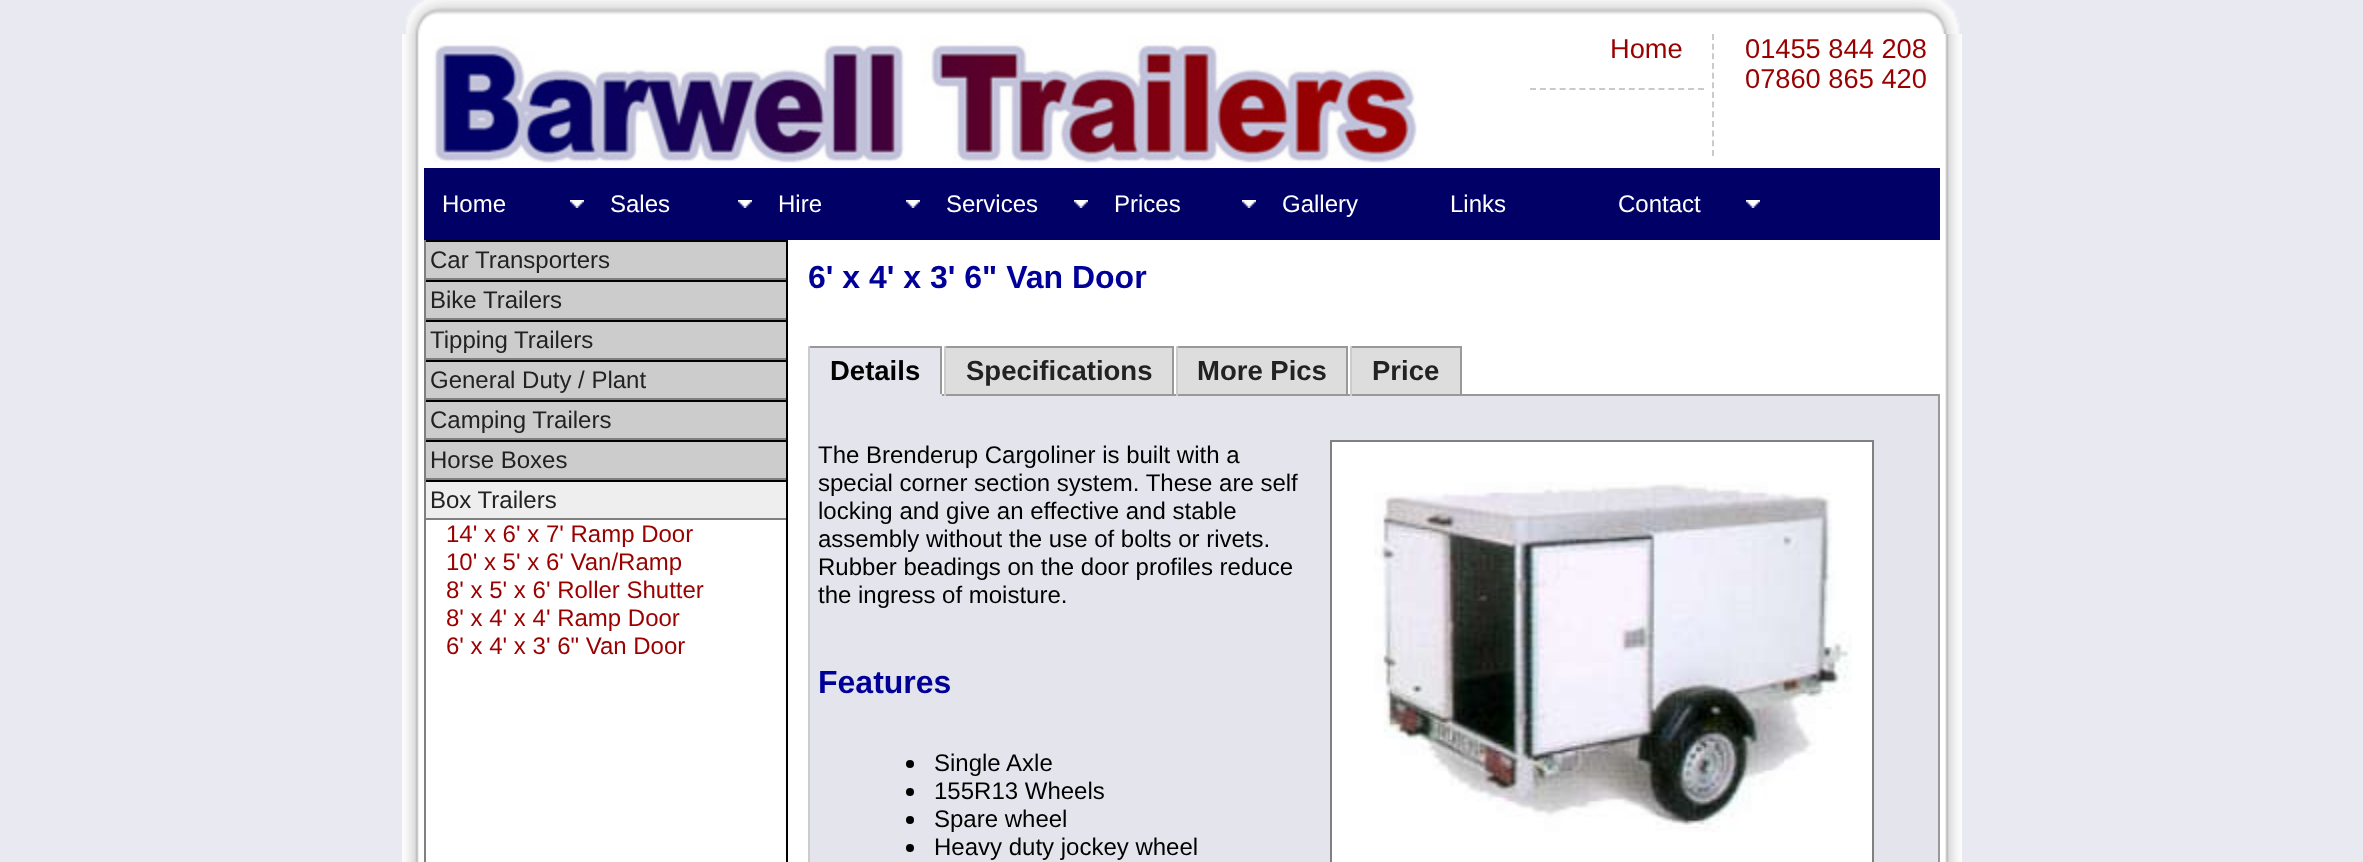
<?xml version="1.0" encoding="UTF-8"?>
<svg xmlns="http://www.w3.org/2000/svg" xmlns:xlink="http://www.w3.org/1999/xlink" width="2363" height="862">
  <rect width="100%" height="100%" fill="#e9e9f2" />
  <image x="406" y="0" width="1554" height="34" xlink:href="image1.png" />
  <image x="402" y="34" width="1560" height="828" xlink:href="image2.png" />
  <image x="433" y="36" width="984" height="128" xlink:href="image3.png" />
  <path d="M 1530 89 h 174" fill="none" stroke="#cacaca" stroke-width="2" stroke-dasharray="6 3.88" />
  <path d="M 1713 34 v 122" fill="none" stroke="#cacaca" stroke-width="2" stroke-dasharray="6 3.66" />
  <rect x="424" y="168" width="1516" height="72" fill="#000066" />
  <image x="570" y="200" width="14" height="8" xlink:href="image4.png" />
  <image x="738" y="200" width="14" height="8" xlink:href="image4.png" />
  <image x="906" y="200" width="14" height="8" xlink:href="image4.png" />
  <image x="1074" y="200" width="14" height="8" xlink:href="image4.png" />
  <image x="1242" y="200" width="14" height="8" xlink:href="image4.png" />
  <image x="1746" y="200" width="14" height="8" xlink:href="image4.png" />
  <rect x="786" y="240" width="2" height="622" fill="#000000" />
  <rect x="424" y="240" width="2" height="622" fill="#808080" />
  <rect x="426" y="242" width="360" height="36" fill="#cccccc" />
  <rect x="426" y="240" width="360" height="2" fill="#000000" />
  <rect x="426" y="278" width="360" height="2" fill="#808080" />
  <rect x="426" y="282" width="360" height="36" fill="#cccccc" />
  <rect x="426" y="280" width="360" height="2" fill="#000000" />
  <rect x="426" y="318" width="360" height="2" fill="#808080" />
  <rect x="426" y="322" width="360" height="36" fill="#cccccc" />
  <rect x="426" y="320" width="360" height="2" fill="#000000" />
  <rect x="426" y="358" width="360" height="2" fill="#808080" />
  <rect x="426" y="362" width="360" height="36" fill="#cccccc" />
  <rect x="426" y="360" width="360" height="2" fill="#000000" />
  <rect x="426" y="398" width="360" height="2" fill="#808080" />
  <rect x="426" y="402" width="360" height="36" fill="#cccccc" />
  <rect x="426" y="400" width="360" height="2" fill="#000000" />
  <rect x="426" y="438" width="360" height="2" fill="#808080" />
  <rect x="426" y="442" width="360" height="36" fill="#cccccc" />
  <rect x="426" y="440" width="360" height="2" fill="#000000" />
  <rect x="426" y="478" width="360" height="2" fill="#808080" />
  <rect x="426" y="482" width="360" height="36" fill="#eeeeee" />
  <rect x="426" y="480" width="360" height="2" fill="#000000" />
  <rect x="426" y="518" width="360" height="2" fill="#808080" />
  <rect x="810" y="348" width="130" height="46" fill="#e4e4ed" />
  <rect x="808" y="346" width="134" height="2" fill="#999999" />
  <rect x="940" y="346" width="2" height="50" fill="#999999" />
  <rect x="808" y="394" width="2" height="468" fill="#cccccc" />
  <rect x="808" y="394" width="134" height="2" fill="#e4e4ed" />
  <rect x="808" y="346" width="2" height="50" fill="#cccccc" />
  <rect x="946" y="348" width="226" height="46" fill="#dddddd" />
  <rect x="944" y="346" width="230" height="2" fill="#999999" />
  <rect x="942" y="394" width="998" height="2" fill="#999999" />
  <rect x="1172" y="346" width="2" height="50" fill="#999999" />
  <rect x="944" y="346" width="2" height="50" fill="#cccccc" />
  <rect x="1178" y="348" width="168" height="46" fill="#dddddd" />
  <rect x="1176" y="346" width="172" height="2" fill="#999999" />
  <rect x="1346" y="346" width="2" height="50" fill="#999999" />
  <rect x="1176" y="346" width="2" height="50" fill="#cccccc" />
  <rect x="1352" y="348" width="108" height="46" fill="#dddddd" />
  <rect x="1350" y="346" width="112" height="2" fill="#999999" />
  <rect x="1460" y="346" width="2" height="50" fill="#999999" />
  <rect x="1350" y="346" width="2" height="50" fill="#cccccc" />
  <rect x="810" y="396" width="1128" height="466" fill="#e4e4ed" />
  <rect x="1938" y="394" width="2" height="468" fill="#999999" />
  <circle cx="910" cy="764" r="4" fill="#000000" />
  <circle cx="910" cy="792" r="4" fill="#000000" />
  <circle cx="910" cy="820" r="4" fill="#000000" />
  <circle cx="910" cy="848" r="4" fill="#000000" />
  <rect x="1331" y="441" width="542" height="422" fill="#ffffff" stroke="#808080" stroke-width="2" />
  <image x="1374" y="482" width="478" height="350" xlink:href="image5.png" />
  <text x="1610" y="58" style="font-family: Liberation Sans; font-size: 27.25px; fill: #990000">Home</text>
  <text x="1745" y="58" style="font-family: Liberation Sans; font-size: 27.25px; fill: #990000">01455 844 208</text>
  <text x="1745" y="88" style="font-family: Liberation Sans; font-size: 27.25px; fill: #990000">07860 865 420</text>
  <text x="442" y="212" style="font-family: Liberation Sans; font-size: 24px; fill: #ffffff">Home</text>
  <text x="610" y="212" style="font-family: Liberation Sans; font-size: 24px; fill: #ffffff">Sales</text>
  <text x="778" y="212" style="font-family: Liberation Sans; font-size: 24px; fill: #ffffff">Hire</text>
  <text x="946" y="212" style="font-family: Liberation Sans; font-size: 24px; fill: #ffffff">Services</text>
  <text x="1114" y="212" style="font-family: Liberation Sans; font-size: 24px; fill: #ffffff">Prices</text>
  <text x="1282" y="212" style="font-family: Liberation Sans; font-size: 24px; fill: #ffffff">Gallery</text>
  <text x="1450" y="212" style="font-family: Liberation Sans; font-size: 24px; fill: #ffffff">Links</text>
  <text x="1618" y="212" style="font-family: Liberation Sans; font-size: 24px; fill: #ffffff">Contact</text>
  <text x="430" y="268" style="font-family: Liberation Sans; font-size: 24px; fill: #222222">Car Transporters</text>
  <text x="430" y="308" style="font-family: Liberation Sans; font-size: 24px; fill: #222222">Bike Trailers</text>
  <text x="430" y="348" style="font-family: Liberation Sans; font-size: 24px; fill: #222222">Tipping Trailers</text>
  <text x="430" y="388" style="font-family: Liberation Sans; font-size: 24px; fill: #222222">General Duty / Plant</text>
  <text x="430" y="428" style="font-family: Liberation Sans; font-size: 24px; fill: #222222">Camping Trailers</text>
  <text x="430" y="468" style="font-family: Liberation Sans; font-size: 24px; fill: #222222">Horse Boxes</text>
  <text x="430" y="508" style="font-family: Liberation Sans; font-size: 24px; fill: #222222">Box Trailers</text>
  <text x="446" y="542" style="font-family: Liberation Sans; font-size: 24px; fill: #990000">14' x 6' x 7' Ramp Door</text>
  <text x="446" y="570" style="font-family: Liberation Sans; font-size: 24px; fill: #990000">10' x 5' x 6' Van/Ramp</text>
  <text x="446" y="598" style="font-family: Liberation Sans; font-size: 24px; fill: #990000">8' x 5' x 6' Roller Shutter</text>
  <text x="446" y="626" style="font-family: Liberation Sans; font-size: 24px; fill: #990000">8' x 4' x 4' Ramp Door</text>
  <text x="446" y="654" style="font-family: Liberation Sans; font-size: 24px; fill: #990000">6' x 4' x 3' 6" Van Door</text>
  <text x="808" y="288" style="font-family: Liberation Sans; font-size: 32px; font-weight: bold; fill: #000099">6' x 4' x 3' 6" Van Door</text>
  <text x="830" y="380" style="font-family: Liberation Sans; font-size: 27.5px; font-weight: bold; fill: #000000">Details</text>
  <text x="966" y="380" style="font-family: Liberation Sans; font-size: 27.5px; font-weight: bold; fill: #222222">Specifications</text>
  <text x="1197" y="380" style="font-family: Liberation Sans; font-size: 27.5px; font-weight: bold; fill: #222222">More Pics</text>
  <text x="1372" y="380" style="font-family: Liberation Sans; font-size: 27.5px; font-weight: bold; fill: #222222">Price</text>
  <text x="818" y="463" style="font-family: Liberation Sans; font-size: 24px; fill: #000000">The Brenderup Cargoliner is built with a</text>
  <text x="818" y="491" style="font-family: Liberation Sans; font-size: 24px; fill: #000000">special corner section system. These are self</text>
  <text x="818" y="519" style="font-family: Liberation Sans; font-size: 24px; fill: #000000">locking and give an effective and stable</text>
  <text x="818" y="547" style="font-family: Liberation Sans; font-size: 24px; fill: #000000">assembly without the use of bolts or rivets.</text>
  <text x="818" y="575" style="font-family: Liberation Sans; font-size: 24px; fill: #000000">Rubber beadings on the door profiles reduce</text>
  <text x="818" y="603" style="font-family: Liberation Sans; font-size: 24px; fill: #000000">the ingress of moisture.</text>
  <text x="818" y="693" style="font-family: Liberation Sans; font-size: 32px; font-weight: bold; fill: #000099">Features</text>
  <text x="934" y="771" style="font-family: Liberation Sans; font-size: 24px; fill: #000000">Single Axle</text>
  <text x="934" y="799" style="font-family: Liberation Sans; font-size: 24px; fill: #000000">155R13 Wheels</text>
  <text x="934" y="827" style="font-family: Liberation Sans; font-size: 24px; fill: #000000">Spare wheel</text>
  <text x="934" y="855" style="font-family: Liberation Sans; font-size: 24px; fill: #000000">Heavy duty jockey wheel</text>
</svg>
